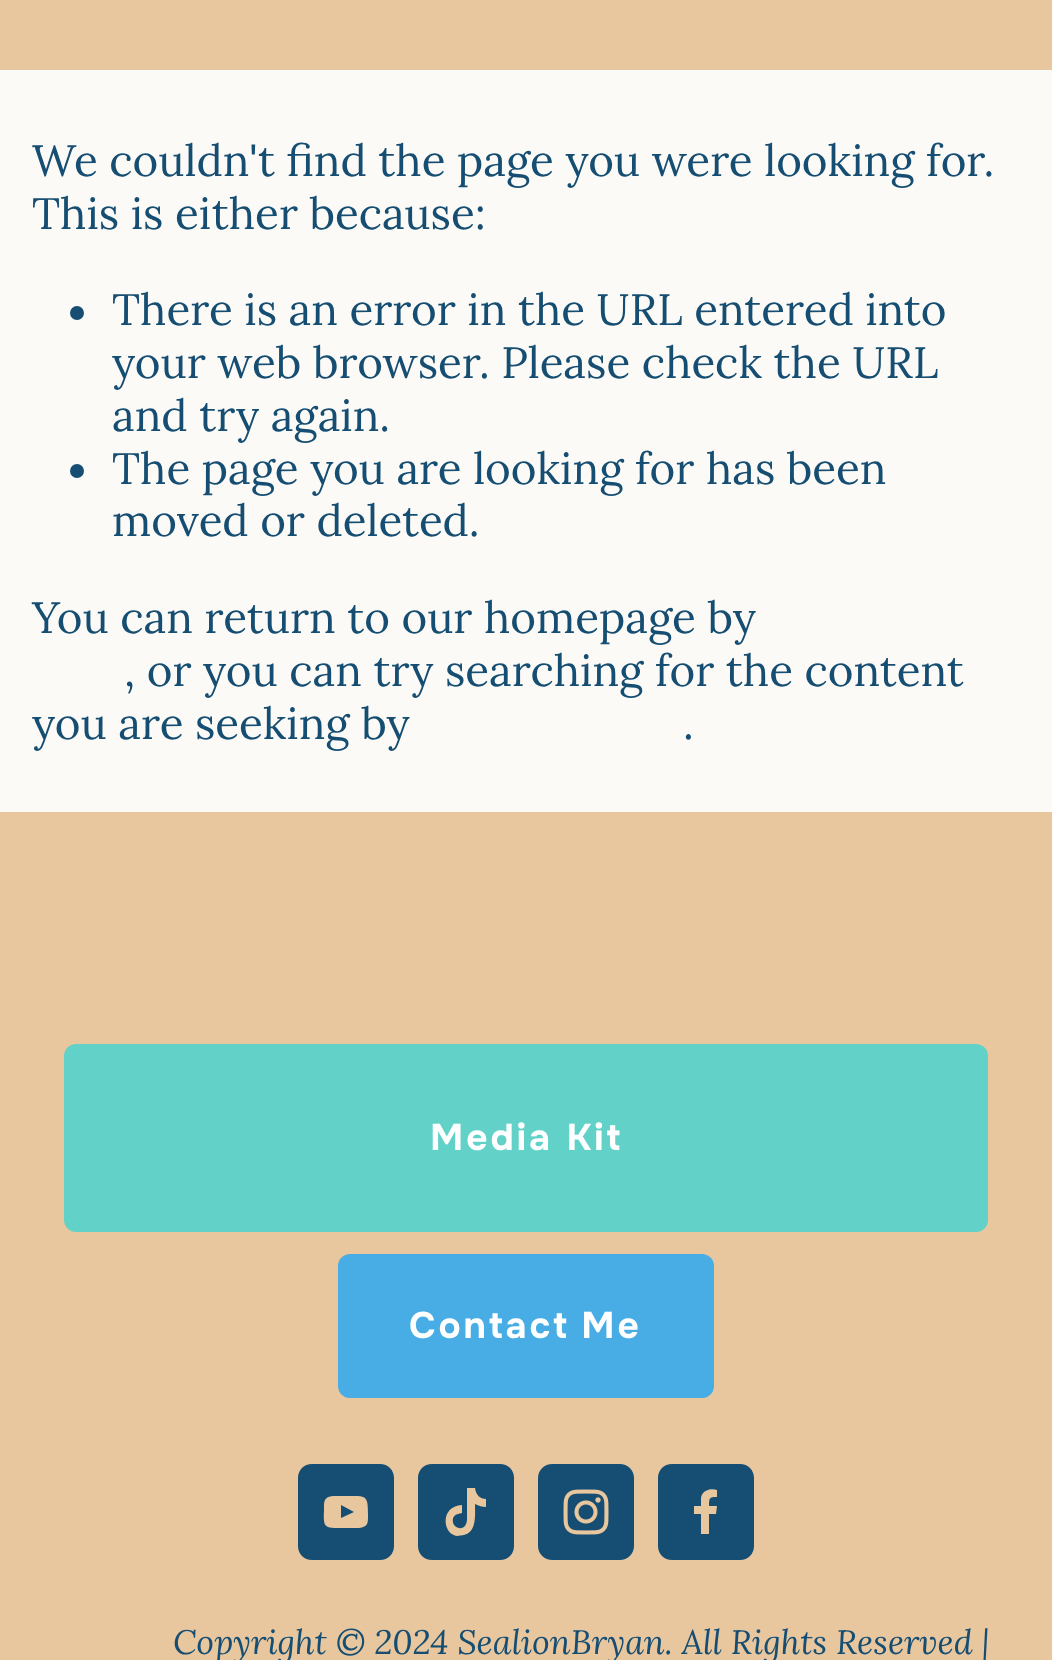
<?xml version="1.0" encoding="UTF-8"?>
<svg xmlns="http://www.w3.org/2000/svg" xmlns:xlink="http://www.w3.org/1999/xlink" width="1052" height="1660">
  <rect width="100%" height="100%" fill="#fcfaf6" />
  <rect width="1052" height="70" fill="#e8c69e" />
  <circle cx="77" cy="313" r="7" fill="#154e72" />
  <circle cx="77" cy="471" r="7" fill="#154e72" />
  <rect y="812" width="1052" height="848" fill="#e8c69e" />
  <rect x="64" y="1044" width="924" height="188" rx="12" fill="#62d2c9" />
  <rect x="338" y="1254" width="376" height="144" rx="12" fill="#48ace5" />
  <path d="M 312 1464 c -8 0 -14 6 -14 14 v 68 c 0 8 6 14 14 14 h 68 c 8 0 14 -6 14 -14 v -68 c 0 -8 -6 -14 -14 -14 z m 56 50 c 0 -18 -2 -18 -17 -18 h -18 c -9 1 -9 5 -9 12 v 2 c -1 18 1 18 16 18 h 19 c 9 -1 9 -5 9 -12 z m -27 4 v -13 l 13 7 z" fill="#154e72" fill-rule="evenodd" />
  <path d="M 432 1464 c -8 0 -14 6 -14 14 v 68 c 0 8 6 14 14 14 h 68 c 8 0 14 -6 14 -14 v -68 c 0 -8 -6 -14 -14 -14 z m 54 35 v 8 c -4 0 -7 -1 -11 -3 c 0 10 2 28 -11 31 l -7 1 c -15 -2 -17 -30 5 -31 v 8 l -4 1 c -4 1 -6 4 -5 8 c 1 8 15 10 14 -5 v -29 h 8 c 1 7 5 11 11 11 z" fill="#154e72" fill-rule="evenodd" />
  <image x="538" y="1464" width="96" height="96" xlink:href="image1.png" />
  <path d="M 672 1464 c -8 0 -14 6 -14 14 v 68 c 0 8 6 14 14 14 h 68 c 8 0 14 -6 14 -14 v -68 c 0 -8 -6 -14 -14 -14 z m 45 33 v -7 c -6 -2 -15 0 -16 8 v 8 h -7 v 8 h 7 v 20 h 8 v -20 h 7 l 1 -8 h -8 c 0 -8 0 -9 8 -9 z" fill="#154e72" fill-rule="evenodd" />
  <text x="32" y="176" style="font-family: Lora; font-size: 43.95px; fill: #154e72">We couldn't find the page you were looking for.</text>
  <text x="32" y="229" style="font-family: Lora; font-size: 43.95px; fill: #154e72">This is either because:</text>
  <text x="112" y="325" style="font-family: Lora; font-size: 43.95px; fill: #154e72">There is an error in the URL entered into</text>
  <text x="112" y="378" style="font-family: Lora; font-size: 43.95px; fill: #154e72">your web browser. Please check the URL</text>
  <text x="112" y="431" style="font-family: Lora; font-size: 43.95px; fill: #154e72">and try again.</text>
  <text x="112" y="484" style="font-family: Lora; font-size: 43.95px; fill: #154e72">The page you are looking for has been</text>
  <text x="112" y="536" style="font-family: Lora; font-size: 43.95px; fill: #154e72">moved or deleted.</text>
  <text x="32" y="633" style="font-family: Lora; font-size: 43.95px; fill: #154e72">You can return to our homepage by</text>
  <text x="124" y="686" style="font-family: Lora; font-size: 43.95px; fill: #154e72">, or you can try searching for the content</text>
  <text x="32" y="739" style="font-family: Lora; font-size: 43.95px; fill: #154e72">you are seeking by</text>
  <text x="683" y="739" style="font-family: Lora; font-size: 43.95px; fill: #154e72">.</text>
  <text x="430" y="1150" style="font-family: Onest; font-size: 37px; font-weight: bold; letter-spacing: 3px; fill: #ffffff">Media Kit</text>
  <text x="409" y="1338" word-spacing="-2" style="font-family: Onest; font-size: 37px; font-weight: bold; letter-spacing: 3px; fill: #ffffff">Contact Me</text>
  <text x="173" y="1654" style="font-family: Lora; font-size: 34px; font-style: italic; fill: #154e72">Copyright © 2024 SealionBryan. All Rights Reserved |</text>
</svg>
